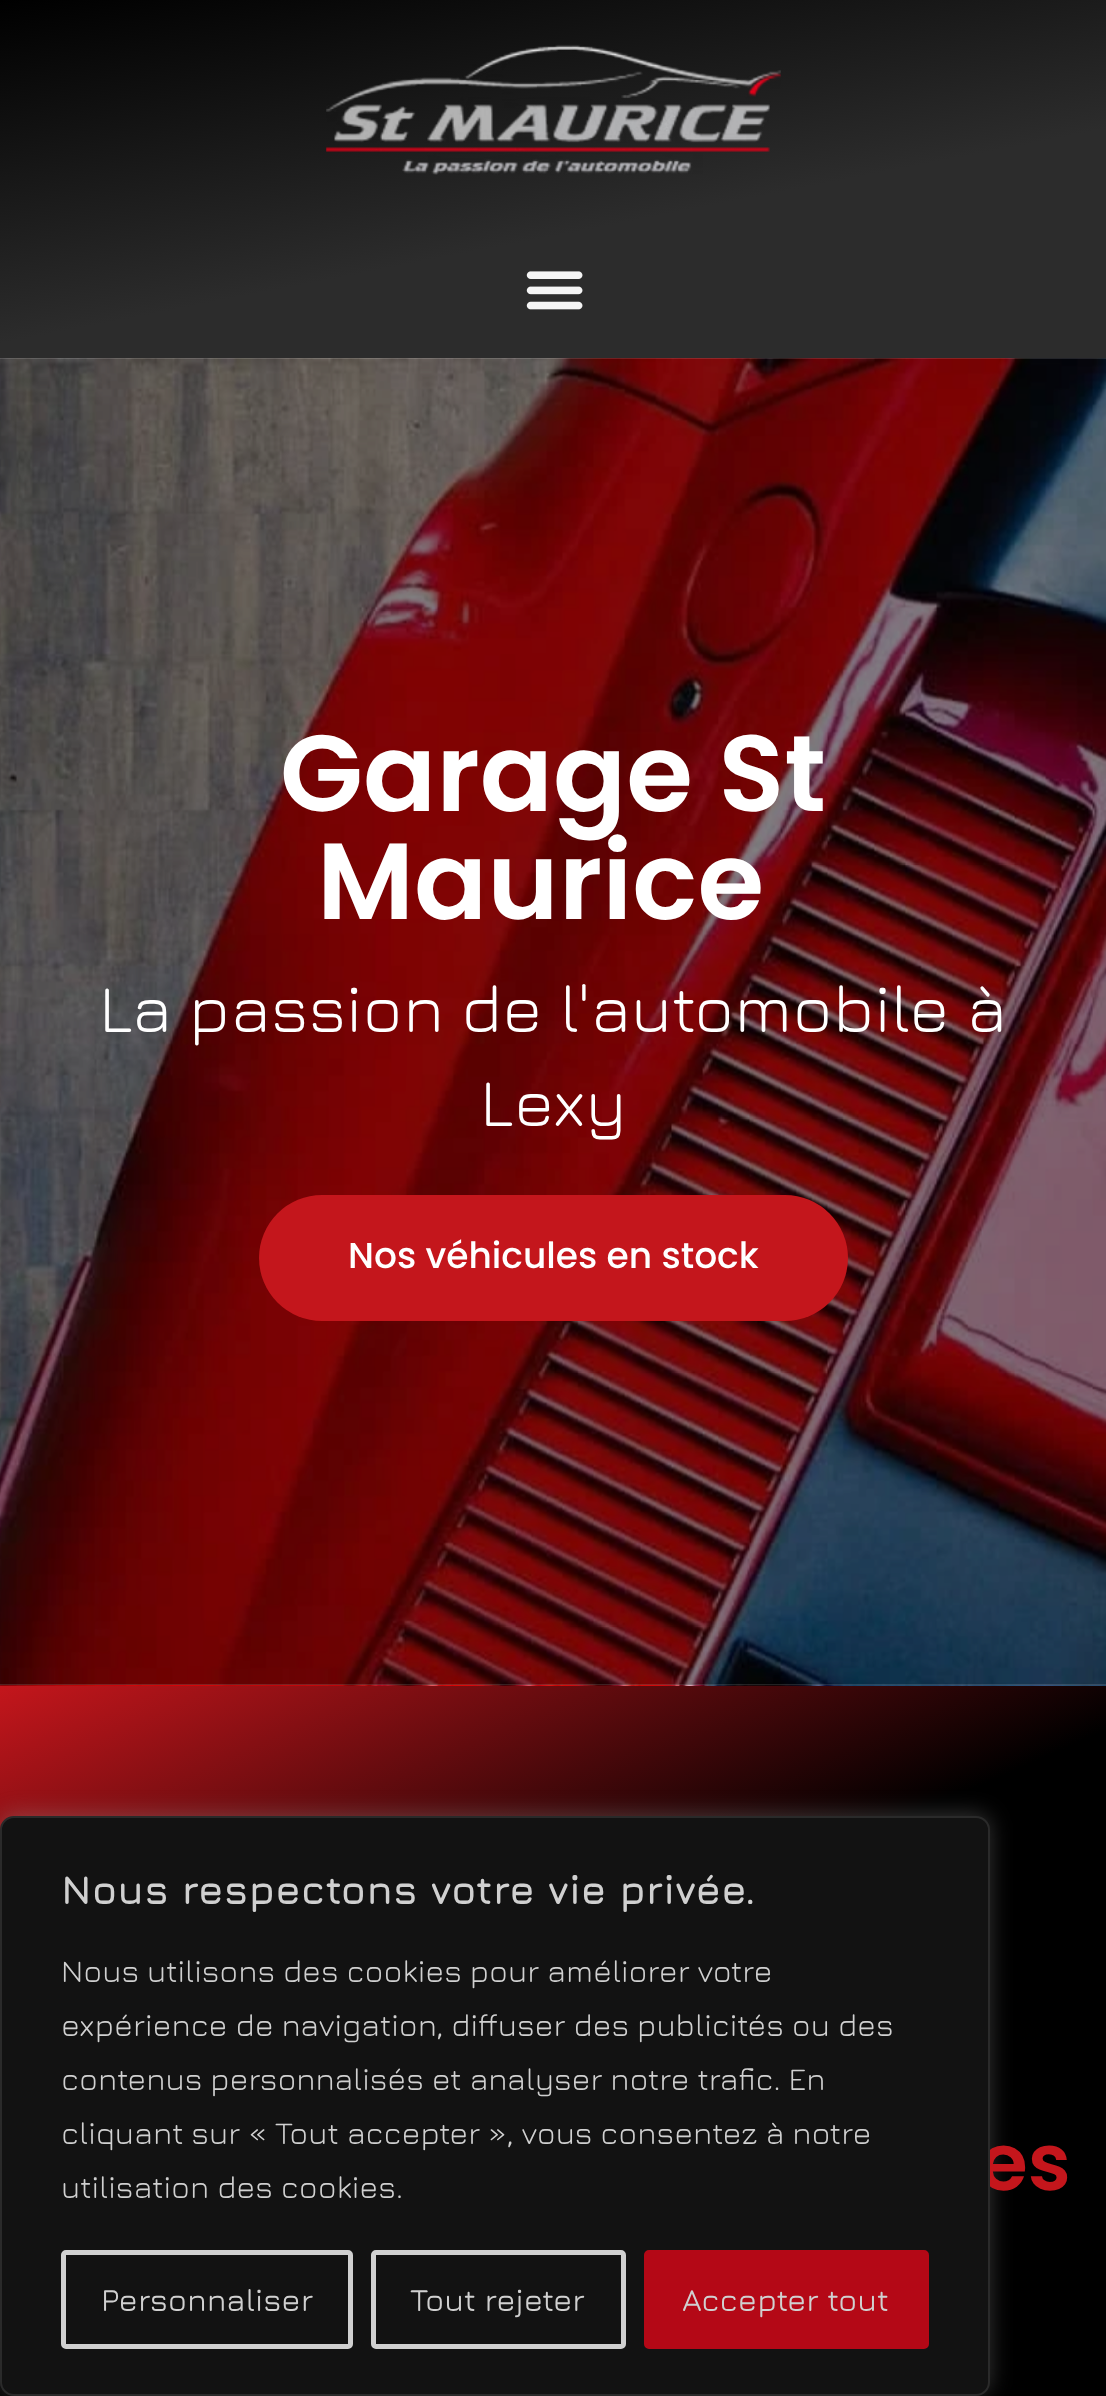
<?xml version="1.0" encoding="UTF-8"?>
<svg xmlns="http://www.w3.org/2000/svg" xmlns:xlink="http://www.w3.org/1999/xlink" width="1106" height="2396">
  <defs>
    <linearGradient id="g1" gradientUnits="userSpaceOnUse" x1="500" y1="-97" x2="607" y2="455"><stop offset="0" stop-color="#000000" /><stop offset="0.6" stop-color="#2c2c2c" /></linearGradient>
    <linearGradient id="g2" gradientUnits="userSpaceOnUse" x1="395" y1="1509" x2="712" y2="2221"><stop offset="0" stop-color="#c4161c" /><stop offset="0.63" stop-color="#000000" /></linearGradient>
  </defs>
  <rect width="100%" height="100%" fill="#ffffff" />
  <rect width="1106" height="358" fill="url(#g1)" />
  <image x="326" y="44" width="455" height="131" xlink:href="image1.png" />
  <image x="526" y="271" width="57" height="39" xlink:href="image2.png" />
  <rect y="1685" width="1106" height="360" fill="url(#g2)" />
  <image x="0" y="358" width="1106" height="1328" xlink:href="image3.png" />
  <rect x="259" y="1195" width="589" height="126" rx="63" fill="#c4161c" />
  <rect y="2045" width="1106" height="351" fill="#000000" />
  <rect y="1814" width="990" height="580" rx="14" fill="#acabab" fill-opacity="0.3" filter="blur(11px)" />
  <text x="280" y="811" style="font-family: Poppins; font-size: 108px; font-weight: 600; fill: #ffffff">Garage St</text>
  <text x="317" y="919" style="font-family: Poppins; font-size: 108px; font-weight: 600; fill: #ffffff">Maurice</text>
  <text x="99" y="1032" style="font-family: Jura; font-size: 67.5px; fill: #ffffff">La passion de l'automobile à</text>
  <text x="480" y="1126" style="font-family: Jura; font-size: 67.5px; fill: #ffffff">Lexy</text>
  <text x="348" y="1268" style="font-family: Poppins; font-size: 36px; font-weight: 500; fill: #ffffff">Nos véhicules en stock</text>
  <text x="979" y="2190" style="font-family: Poppins; font-size: 79px; font-weight: 600; fill: #c4161c">es</text>
  <rect x="1" y="1817" width="988" height="578" rx="13" fill="#121212" stroke="#2a2a2a" stroke-width="2" />
  <text x="61" y="1904" style="font-family: Jura; font-size: 40.5px; font-weight: bold; fill: #d0d0d0">Nous respectons votre vie privée.</text>
  <text x="61" y="1982" style="font-family: Jura; font-size: 31.5px; fill: #d0d0d0">Nous utilisons des cookies pour améliorer votre</text>
  <text x="61" y="2036" style="font-family: Jura; font-size: 31.5px; fill: #d0d0d0">expérience de navigation, diffuser des publicités ou des</text>
  <text x="61" y="2090" style="font-family: Jura; font-size: 31.5px; fill: #d0d0d0">contenus personnalisés et analyser notre trafic. En</text>
  <text x="61" y="2144" style="font-family: Jura; font-size: 31.5px; fill: #d0d0d0">cliquant sur « Tout accepter », vous consentez à notre</text>
  <text x="61" y="2198" style="font-family: Jura; font-size: 31.5px; fill: #d0d0d0">utilisation des cookies.</text>
  <rect x="63.5" y="2252.5" width="287" height="94" rx="2.5" fill="none" stroke="#d0d0d0" stroke-width="5" />
  <text x="101" y="2311" style="font-family: Jura; font-size: 31.5px; font-weight: 500; fill: #d0d0d0">Personnaliser</text>
  <rect x="373.5" y="2252.5" width="250" height="94" rx="2.5" fill="none" stroke="#d0d0d0" stroke-width="5" />
  <text x="410" y="2311" style="font-family: Jura; font-size: 31.5px; font-weight: 500; fill: #d0d0d0">Tout rejeter</text>
  <rect x="646.5" y="2252.5" width="280" height="94" rx="2.5" fill="#b40816" stroke="#b40816" stroke-width="5" />
  <text x="682" y="2311" style="font-family: Jura; font-size: 31.5px; font-weight: 500; fill: #d0d0d0">Accepter tout</text>
</svg>
